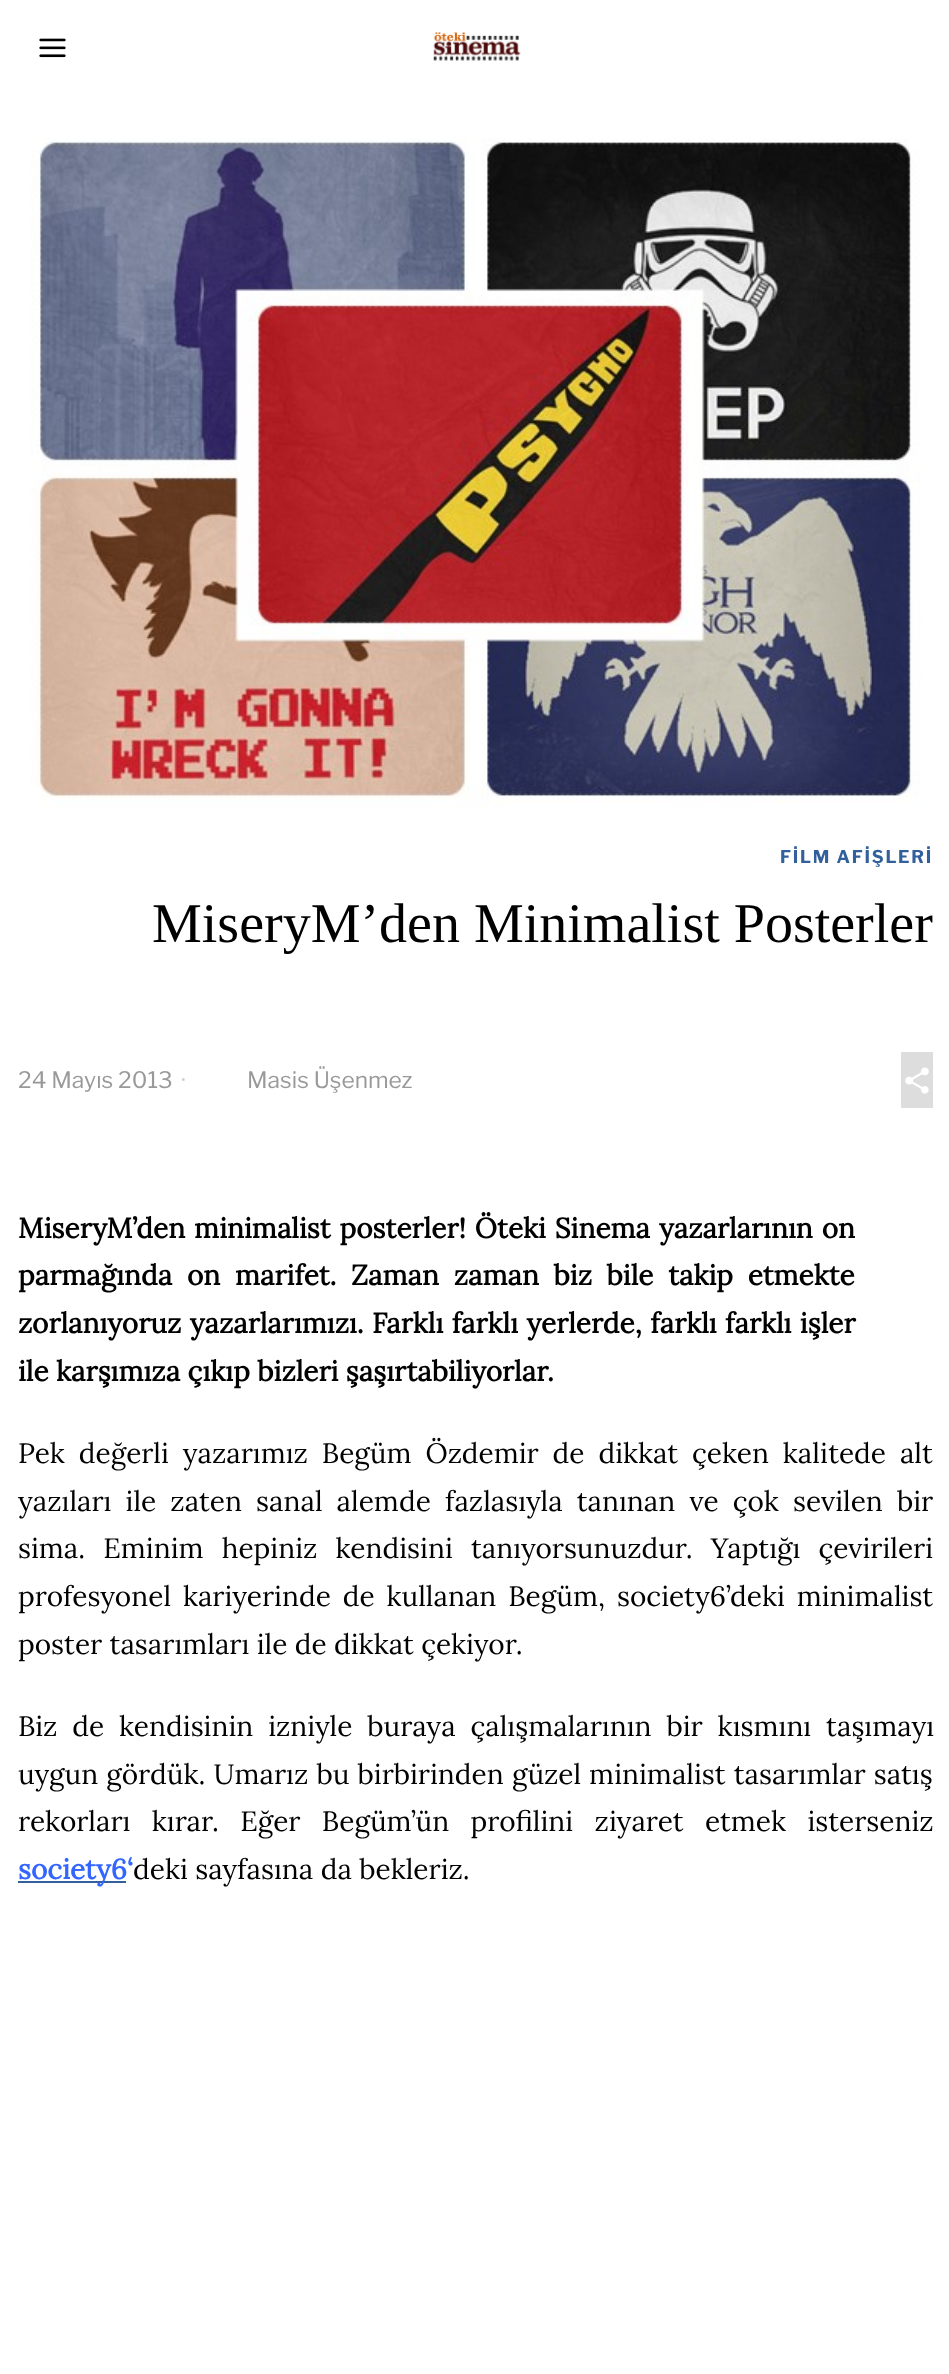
<?xml version="1.0" encoding="UTF-8"?>
<svg xmlns="http://www.w3.org/2000/svg" xmlns:xlink="http://www.w3.org/1999/xlink" width="949" height="2374">
  <rect width="100%" height="100%" fill="#ffffff" />
  <image x="39" y="38" width="27" height="20" xlink:href="image1.png" />
  <image x="433" y="31" width="88" height="30" xlink:href="image2.png" />
  <image x="30" y="138" width="891" height="671" xlink:href="image3.png" />
  <rect x="901" y="1052" width="32" height="56" fill="#dddddd" />
  <image x="905" y="1067" width="24" height="27" xlink:href="image4.png" />
  <rect x="18" y="1881" width="108" height="2" fill="#31609c" />
  <text x="780" y="863" style="font-family: Libre Franklin; font-size: 17.5px; font-weight: bold; letter-spacing: 1.75px; fill: #31609c">FİLM AFİŞLERİ</text>
  <text x="152" y="942" style="font-family: Tinos; font-size: 56px; fill: #000000">MiseryM’den Minimalist Posterler</text>
  <text x="18" y="1088" style="font-family: Libre Franklin; font-size: 22.75px; fill: #999999">24 Mayıs 2013</text>
  <text x="181" y="1088" style="font-family: Libre Franklin; font-size: 22.75px; fill: #cccccc">·</text>
  <text x="247" y="1088" style="font-family: Libre Franklin; font-size: 22.75px; fill: #999999">Masis Üşenmez</text>
  <text x="18" y="1238" word-spacing="1.5" style="font-family: Lora; font-size: 28px; font-weight: bold; fill: #000000">MiseryM’den minimalist posterler! Öteki Sinema yazarlarının on</text>
  <text x="18" y="1285" word-spacing="7.25" style="font-family: Lora; font-size: 28px; font-weight: bold; fill: #000000">parmağında on marifet. Zaman zaman biz bile takip etmekte</text>
  <text x="18" y="1333" word-spacing="1" style="font-family: Lora; font-size: 28px; font-weight: bold; fill: #000000">zorlanıyoruz yazarlarımızı. Farklı farklı yerlerde, farklı farklı işler</text>
  <text x="18" y="1381" style="font-family: Lora; font-size: 28px; font-weight: bold; fill: #000000">ile karşımıza çıkıp bizleri şaşırtabiliyorlar.</text>
  <text x="18" y="1463" word-spacing="6.5" style="font-family: Lora; font-size: 28px; fill: #000000">Pek değerli yazarımız Begüm Özdemir de dikkat çeken kalitede alt</text>
  <text x="18" y="1511" word-spacing="6.75" style="font-family: Lora; font-size: 28px; fill: #000000">yazıları ile zaten sanal alemde fazlasıyla tanınan ve çok sevilen bir</text>
  <text x="18" y="1558" word-spacing="10.75" style="font-family: Lora; font-size: 28px; fill: #000000">sima. Eminim hepiniz kendisini tanıyorsunuzdur. Yaptığı çevirileri</text>
  <text x="18" y="1606" word-spacing="4.5" style="font-family: Lora; font-size: 28px; fill: #000000">profesyonel kariyerinde de kullanan Begüm, society6’deki minimalist</text>
  <text x="18" y="1654" style="font-family: Lora; font-size: 28px; fill: #000000">poster tasarımları ile de dikkat çekiyor.</text>
  <text x="18" y="1736" word-spacing="7.5" style="font-family: Lora; font-size: 28px; fill: #000000">Biz de kendisinin izniyle buraya çalışmalarının bir kısmını taşımayı</text>
  <text x="18" y="1784" word-spacing="0.75" style="font-family: Lora; font-size: 28px; fill: #000000">uygun gördük. Umarız bu birbirinden güzel minimalist tasarımlar satış</text>
  <text x="18" y="1831" word-spacing="14" style="font-family: Lora; font-size: 28px; fill: #000000">rekorları kırar. Eğer Begüm’ün profilini ziyaret etmek isterseniz</text>
  <text x="18" y="1879" style="font-family: Lora; font-size: 28px; font-weight: bold; fill: #3366ff">society6‘</text>
  <text x="133" y="1879" style="font-family: Lora; font-size: 28px; fill: #000000">deki sayfasına da bekleriz.</text>
</svg>
